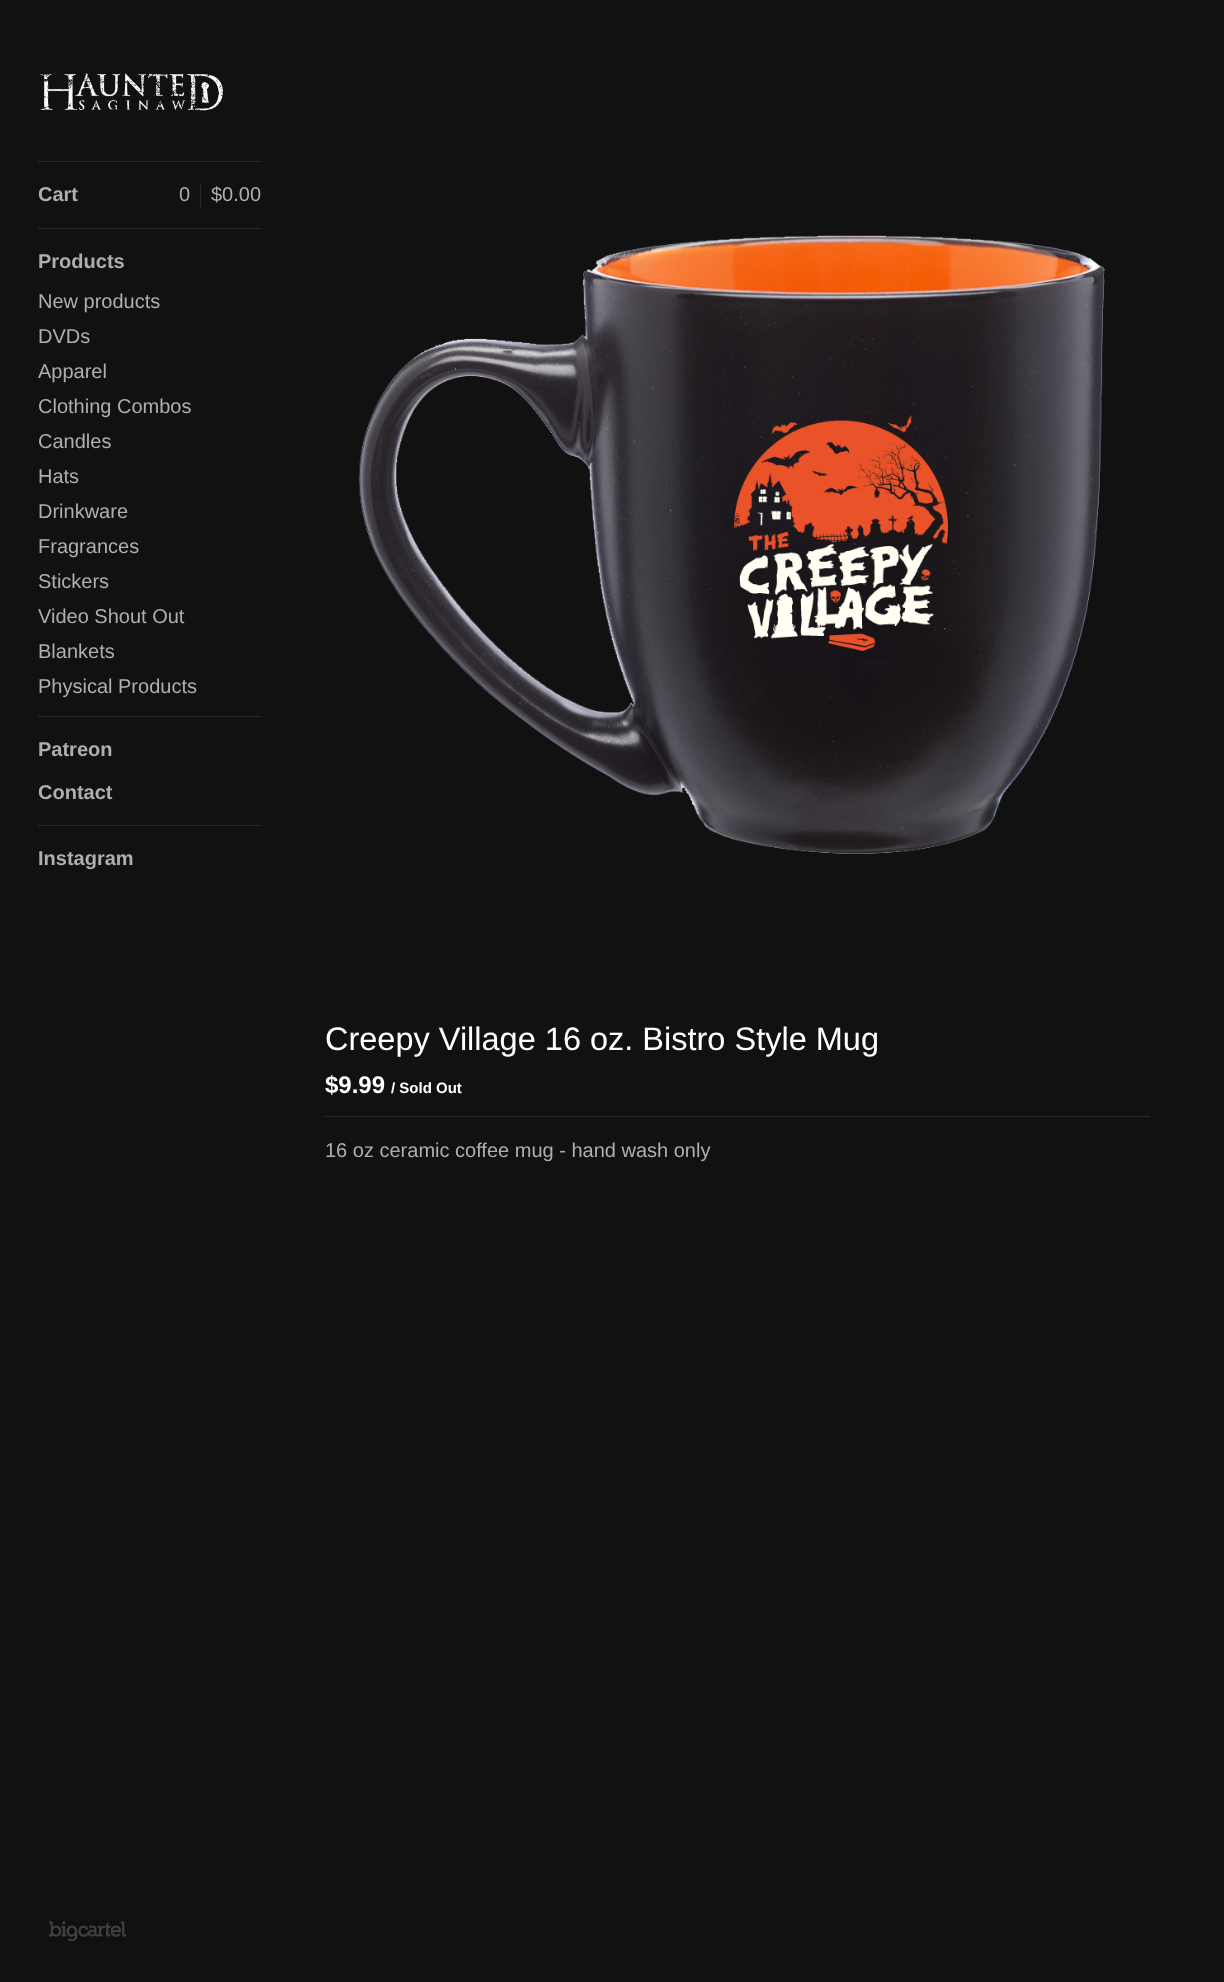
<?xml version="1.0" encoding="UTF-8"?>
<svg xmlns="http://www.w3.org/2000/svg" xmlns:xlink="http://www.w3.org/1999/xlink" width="1224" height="1982">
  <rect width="100%" height="100%" fill="#111111" />
  <image x="40" y="73" width="183" height="38" xlink:href="image1.png" />
  <rect x="38" y="161" width="223" height="1" fill="#2b2b2b" />
  <rect x="200" y="183" width="1" height="25" fill="#2b2b2b" />
  <rect x="38" y="228" width="223" height="1" fill="#2b2b2b" />
  <rect x="38" y="716" width="223" height="1" fill="#2b2b2b" />
  <rect x="38" y="825" width="223" height="1" fill="#2b2b2b" />
  <image x="49" y="1921" width="77" height="20" xlink:href="image2.png" />
  <image x="359" y="235" width="746" height="619" xlink:href="image3.png" />
  <rect x="325" y="1116" width="825" height="1" fill="#2b2b2b" />
  <text x="38" y="201" style="font-family: Liberation Sans; font-size: 20px; font-weight: bold; fill: #afafaf">Cart</text>
  <text x="179" y="201" style="font-family: Liberation Sans; font-size: 20px; fill: #afafaf">0</text>
  <text x="211" y="201" style="font-family: Liberation Sans; font-size: 20px; fill: #afafaf">$0.00</text>
  <text x="38" y="268" style="font-family: Liberation Sans; font-size: 20px; font-weight: bold; fill: #afafaf">Products</text>
  <text x="38" y="308" style="font-family: Liberation Sans; font-size: 20px; fill: #afafaf">New products</text>
  <text x="38" y="343" style="font-family: Liberation Sans; font-size: 20px; fill: #afafaf">DVDs</text>
  <text x="38" y="378" style="font-family: Liberation Sans; font-size: 20px; fill: #afafaf">Apparel</text>
  <text x="38" y="413" style="font-family: Liberation Sans; font-size: 20px; fill: #afafaf">Clothing Combos</text>
  <text x="38" y="448" style="font-family: Liberation Sans; font-size: 20px; fill: #afafaf">Candles</text>
  <text x="38" y="483" style="font-family: Liberation Sans; font-size: 20px; fill: #afafaf">Hats</text>
  <text x="38" y="518" style="font-family: Liberation Sans; font-size: 20px; fill: #afafaf">Drinkware</text>
  <text x="38" y="553" style="font-family: Liberation Sans; font-size: 20px; fill: #afafaf">Fragrances</text>
  <text x="38" y="588" style="font-family: Liberation Sans; font-size: 20px; fill: #afafaf">Stickers</text>
  <text x="38" y="623" style="font-family: Liberation Sans; font-size: 20px; fill: #afafaf">Video Shout Out</text>
  <text x="38" y="658" style="font-family: Liberation Sans; font-size: 20px; fill: #afafaf">Blankets</text>
  <text x="38" y="693" style="font-family: Liberation Sans; font-size: 20px; fill: #afafaf">Physical Products</text>
  <text x="38" y="756" style="font-family: Liberation Sans; font-size: 20px; font-weight: bold; fill: #afafaf">Patreon</text>
  <text x="38" y="799" style="font-family: Liberation Sans; font-size: 20px; font-weight: bold; fill: #afafaf">Contact</text>
  <text x="38" y="865" style="font-family: Liberation Sans; font-size: 20px; font-weight: bold; fill: #afafaf">Instagram</text>
  <text x="325" y="1050" style="font-family: Liberation Sans; font-size: 32.5px; fill: #ffffff">Creepy Village 16 oz. Bistro Style Mug</text>
  <text x="325" y="1093" style="font-family: Liberation Sans; font-size: 24px; font-weight: bold; fill: #ffffff">$9.99</text>
  <text x="391" y="1093" style="font-family: Liberation Sans; font-size: 15px; font-weight: bold; fill: #ffffff">/ Sold Out</text>
  <text x="325" y="1157" style="font-family: Liberation Sans; font-size: 20px; fill: #afafaf">16 oz ceramic coffee mug - hand wash only</text>
</svg>
